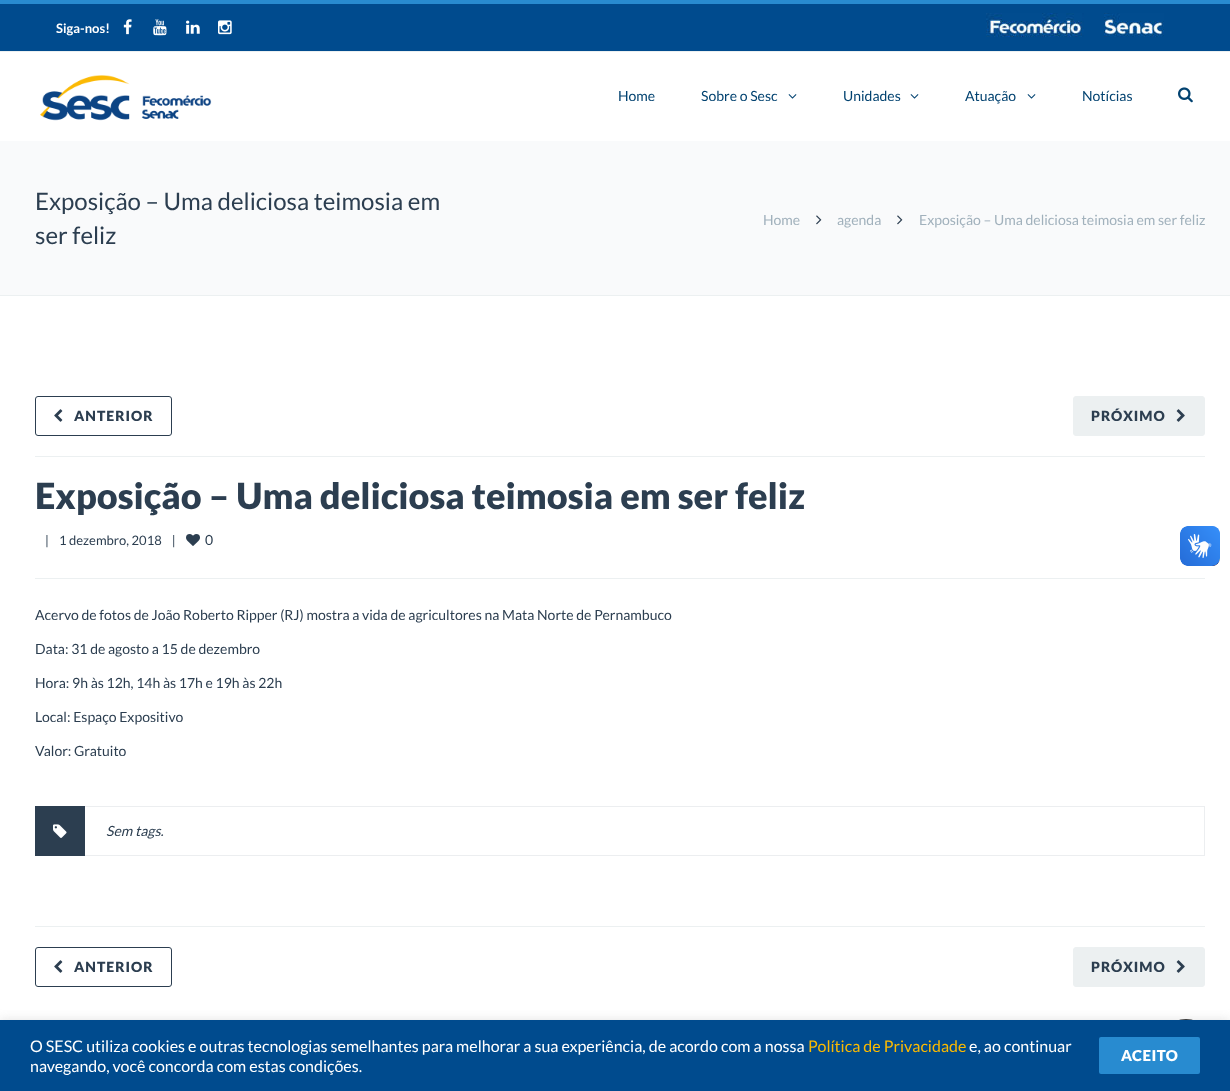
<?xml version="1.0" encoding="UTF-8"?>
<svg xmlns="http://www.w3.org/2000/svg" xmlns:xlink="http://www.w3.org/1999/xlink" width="1230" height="1091">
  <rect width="100%" height="100%" fill="#ffffff" />
  <rect y="4" width="1230" height="47" fill="#004b8e" />
  <rect width="1230" height="4" fill="#288bd0" />
  <image x="123" y="19" width="9" height="16" xlink:href="image1.png" />
  <image x="153" y="19" width="14" height="17" xlink:href="image2.png" />
  <image x="186" y="20" width="14" height="14" xlink:href="image3.png" />
  <image x="218" y="20" width="14" height="15" xlink:href="image4.png" />
  <image x="986" y="13" width="98" height="24" xlink:href="image5.png" />
  <image x="1104" y="13" width="60" height="24" xlink:href="image6.png" />
  <rect y="51" width="1230" height="1" fill="#ecf0f1" />
  <image x="40" y="75" width="172" height="46" xlink:href="image7.png" />
  <image x="788" y="94" width="9" height="5" xlink:href="image8.png" />
  <image x="910" y="94" width="9" height="5" xlink:href="image8.png" />
  <image x="1027" y="94" width="9" height="5" xlink:href="image8.png" />
  <image x="1178" y="87" width="15" height="16" xlink:href="image9.png" />
  <rect y="141" width="1230" height="154" fill="#f9fafb" />
  <rect y="295" width="1230" height="1" fill="#ecf0f1" />
  <image x="816" y="215" width="6" height="10" xlink:href="image10.png" />
  <image x="897" y="215" width="6" height="10" xlink:href="image10.png" />
  <rect x="35" y="456" width="1170" height="1" fill="#ecf0f1" />
  <rect x="35.5" y="396.5" width="136" height="39" rx="2.5" fill="none" stroke="#2c3e50" />
  <image x="54" y="409" width="9" height="13" xlink:href="image11.png" />
  <rect x="1073.5" y="396.5" width="131" height="39" rx="2.5" fill="#ecf0f1" stroke="#ecf0f1" />
  <image x="1176" y="409" width="9" height="13" xlink:href="image12.png" />
  <rect x="35" y="578" width="1170" height="1" fill="#ecf0f1" />
  <image x="186" y="534" width="14" height="12" xlink:href="image13.png" />
  <rect x="35.5" y="806.5" width="1169" height="49" fill="none" stroke="#eceef0" />
  <rect x="35" y="806" width="50" height="50" fill="#2c3e50" />
  <image x="53" y="824" width="14" height="14" xlink:href="image14.png" />
  <rect x="35" y="926" width="1170" height="1" fill="#ecf0f1" />
  <rect x="35.5" y="947.5" width="136" height="39" rx="2.5" fill="none" stroke="#2c3e50" />
  <image x="54" y="960" width="9" height="13" xlink:href="image11.png" />
  <rect x="1073.5" y="947.5" width="131" height="39" rx="2.5" fill="#ecf0f1" stroke="#ecf0f1" />
  <image x="1176" y="960" width="9" height="13" xlink:href="image12.png" />
  <image x="1180" y="526" width="40" height="40" xlink:href="image15.png" />
  <image x="1180" y="526" width="40" height="40" xlink:href="image16.png" />
  <circle cx="1186" cy="1047" r="28" fill="#262626" />
  <rect y="1019" width="1230" height="71" fill="#acabab" fill-opacity="0.3" filter="blur(5px)" />
  <rect y="1020" width="1230" height="71" fill="#004b8e" />
  <rect x="1099" y="1037" width="101" height="37" rx="2" fill="#288bd0" />
  <text x="56" y="33" style="font-family: Lato; font-size: 13px; font-weight: bold; fill: #ffffff">Siga-nos!</text>
  <text x="618" y="101" style="font-family: Lato; font-size: 14px; fill: #024270">Home</text>
  <text x="701" y="101" style="font-family: Lato; font-size: 14px; fill: #024270">Sobre o Sesc</text>
  <text x="843" y="101" style="font-family: Lato; font-size: 14px; fill: #024270">Unidades</text>
  <text x="965" y="101" style="font-family: Lato; font-size: 14px; fill: #024270">Atuação</text>
  <text x="1082" y="101" style="font-family: Lato; font-size: 14px; fill: #024270">Notícias</text>
  <text x="35" y="210" style="font-family: Lato; font-size: 24px; fill: #2c3e50">Exposição – Uma deliciosa teimosia em</text>
  <text x="35" y="244" style="font-family: Lato; font-size: 24px; fill: #2c3e50">ser feliz</text>
  <text x="763" y="225" style="font-family: Lato; font-size: 14px; fill: #a1b1bc">Home</text>
  <text x="837" y="225" style="font-family: Lato; font-size: 14px; fill: #a1b1bc">agenda</text>
  <text x="919" y="225" style="font-family: Lato; font-size: 14px; fill: #a1b1bc">Exposição – Uma deliciosa teimosia em ser feliz</text>
  <text x="74" y="421" style="font-family: Lato; font-size: 14px; font-weight: 900; letter-spacing: 1px; fill: #2c3e50">ANTERIOR</text>
  <text x="1091" y="421" style="font-family: Lato; font-size: 14px; font-weight: 900; letter-spacing: 1px; fill: #2c3e50">PRÓXIMO</text>
  <text x="35" y="509" style="font-family: Lato; font-size: 36px; font-weight: 900; fill: #2c3e50">Exposição – Uma deliciosa teimosia em ser feliz</text>
  <text x="45" y="545" style="font-family: Lato; font-size: 13px; fill: #2c3e50" xml:space="preserve">|    1 dezembro, 2018    |</text>
  <text x="205" y="545" style="font-family: Lato; font-size: 14px; fill: #2c3e50">0</text>
  <text x="35" y="620" style="font-family: Lato; font-size: 14px; fill: #2c3e50">Acervo de fotos de João Roberto Ripper (RJ) mostra a vida de agricultores na Mata Norte de Pernambuco</text>
  <text x="35" y="654" style="font-family: Lato; font-size: 14px; fill: #2c3e50">Data: 31 de agosto a 15 de dezembro</text>
  <text x="35" y="688" style="font-family: Lato; font-size: 14px; fill: #2c3e50">Hora: 9h às 12h, 14h às 17h e 19h às 22h</text>
  <text x="35" y="722" style="font-family: Lato; font-size: 14px; fill: #2c3e50">Local: Espaço Expositivo</text>
  <text x="35" y="756" style="font-family: Lato; font-size: 14px; fill: #2c3e50">Valor: Gratuito</text>
  <text x="106" y="836" style="font-family: Lato; font-size: 14px; font-style: italic; fill: #2c3e50">Sem tags.</text>
  <text x="74" y="972" style="font-family: Lato; font-size: 14px; font-weight: 900; letter-spacing: 1px; fill: #2c3e50">ANTERIOR</text>
  <text x="1091" y="972" style="font-family: Lato; font-size: 14px; font-weight: 900; letter-spacing: 1px; fill: #2c3e50">PRÓXIMO</text>
  <text x="30" y="1052" style="font-family: Lato; font-size: 16px; fill: #ffffff">O SESC utiliza cookies e outras tecnologias semelhantes para melhorar a sua experiência, de acordo com a nossa</text>
  <text x="808" y="1052" style="font-family: Lato; font-size: 16px; fill: #fbba00">Política de Privacidade</text>
  <text x="969" y="1052" style="font-family: Lato; font-size: 16px; fill: #ffffff">e, ao continuar</text>
  <text x="30" y="1072" style="font-family: Lato; font-size: 16px; fill: #ffffff">navegando, você concorda com estas condições.</text>
  <text x="1121" y="1061" style="font-family: Lato; font-size: 15px; font-weight: 900; letter-spacing: 0.5px; fill: #ffffff">ACEITO</text>
</svg>
